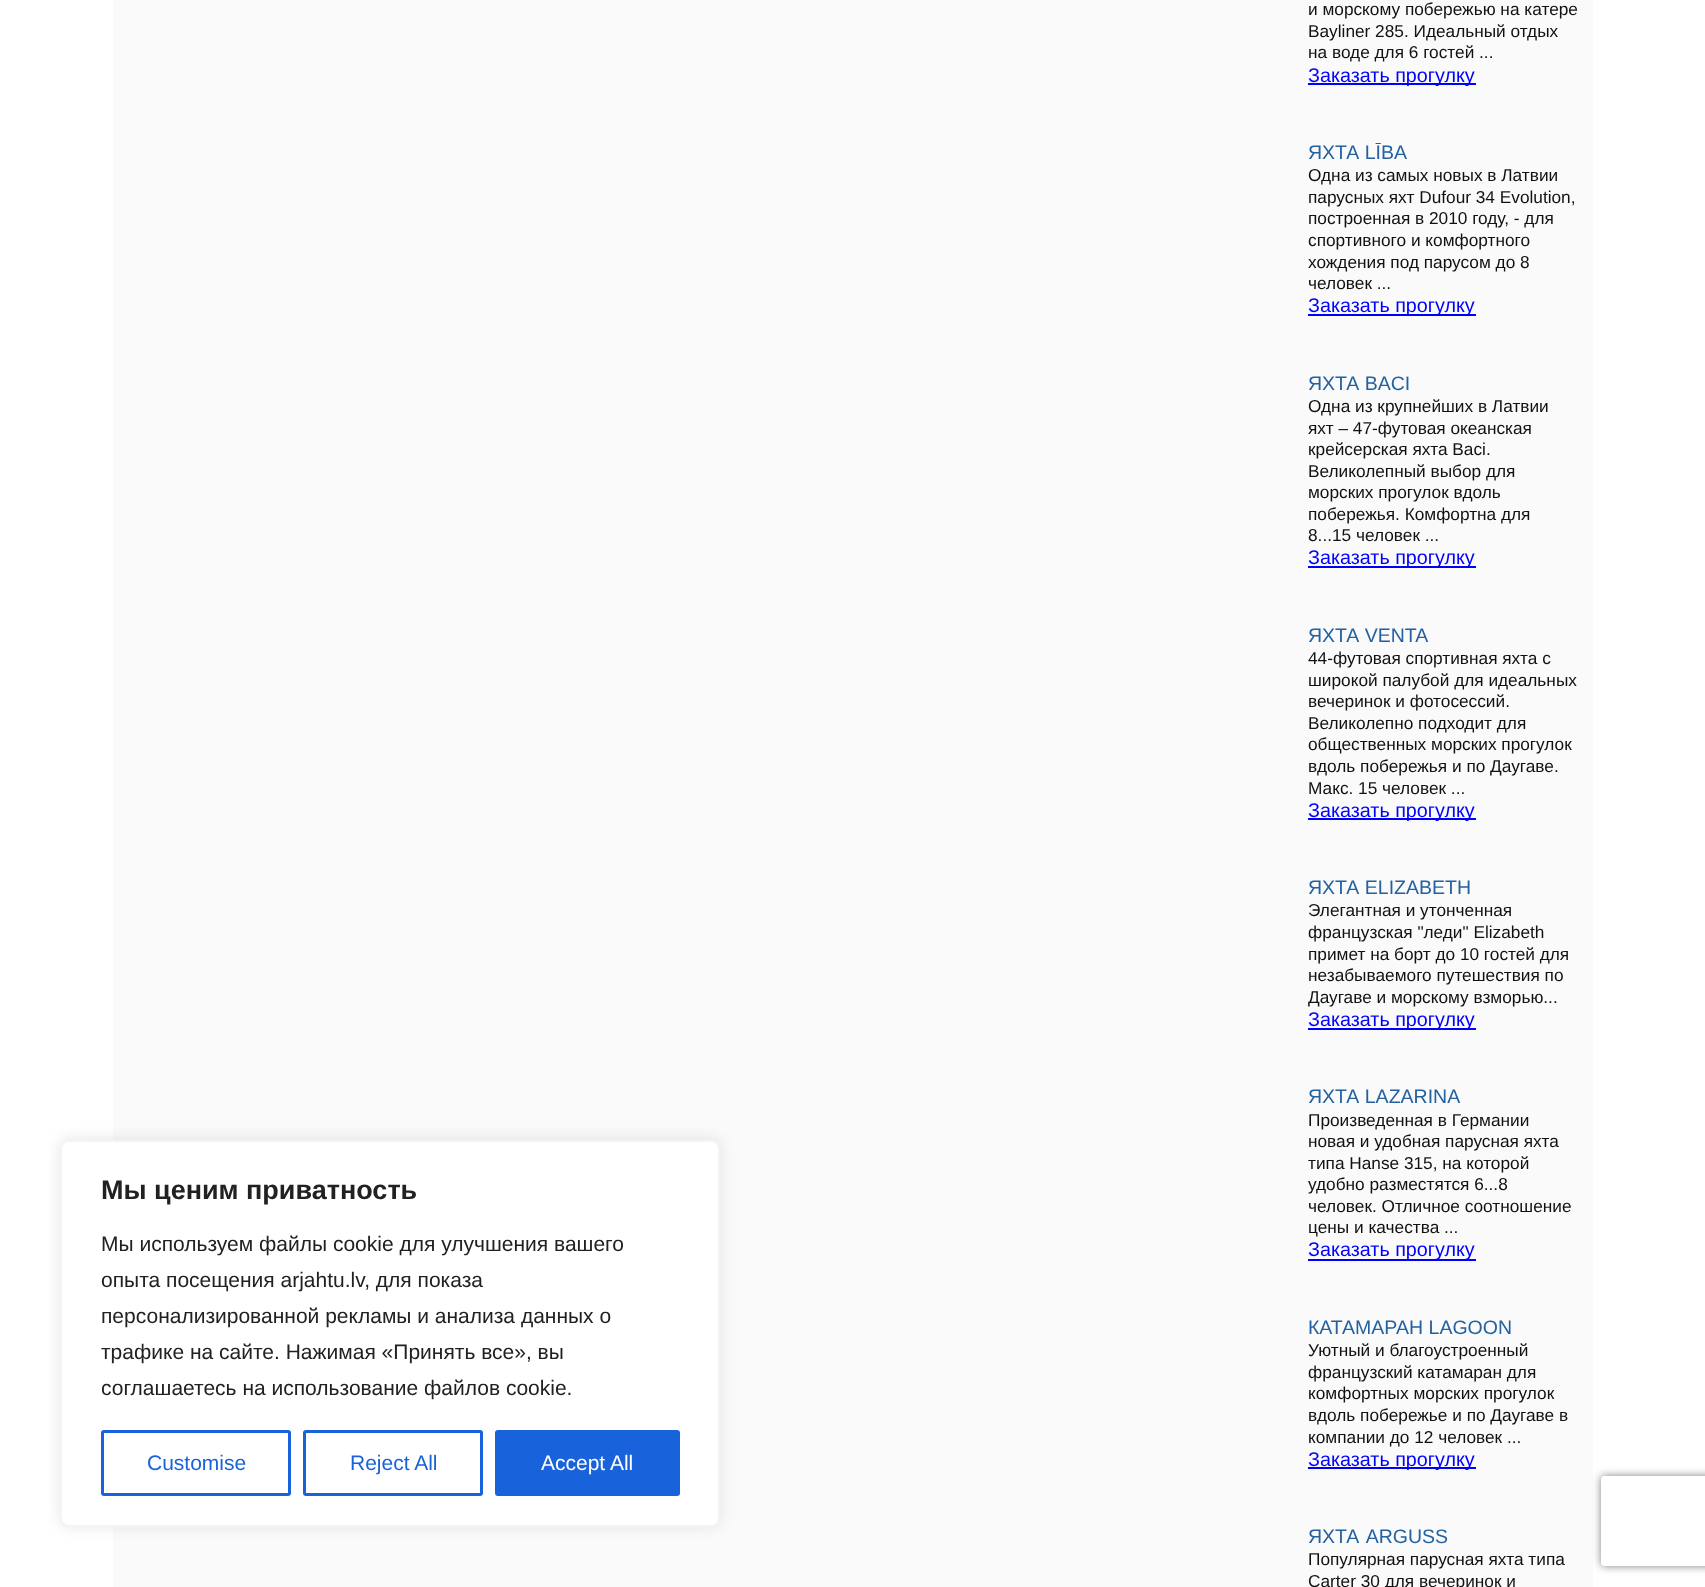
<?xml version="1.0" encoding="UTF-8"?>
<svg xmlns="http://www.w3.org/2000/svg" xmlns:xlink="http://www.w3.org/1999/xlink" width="1705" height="1587">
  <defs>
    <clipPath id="clip1"><path d="M 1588 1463 h 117 v 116 h -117 z m 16 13 h 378 c 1.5 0 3 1.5 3 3 v 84 c 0 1.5 -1.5 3 -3 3 h -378 c -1.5 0 -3 -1.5 -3 -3 v -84 c 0 -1.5 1.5 -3 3 -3 z" clip-rule="evenodd" /></clipPath>
  </defs>
  <rect width="100%" height="100%" fill="#ffffff" />
  <rect x="113" width="1480" height="1587" fill="#fafafa" />
  <rect x="60" y="1139" width="660" height="387" rx="9" fill="#acabab" fill-opacity="0.3" filter="blur(7.5px)" />
  <rect x="61" y="1141" width="658" height="385" rx="8" fill="#ffffff" stroke="#f4f4f4" stroke-width="2" />
  <rect x="102.5" y="1431.5" width="187" height="63" rx="1.5" fill="none" stroke="#1863dc" stroke-width="3" />
  <rect x="304.5" y="1431.5" width="177" height="63" rx="1.5" fill="none" stroke="#1863dc" stroke-width="3" />
  <rect x="496.5" y="1431.5" width="182" height="63" rx="1.5" fill="#1863dc" stroke="#1863dc" stroke-width="3" />
  <rect x="1308" y="83" width="168" height="2" fill="#0000ff" />
  <rect x="1308" y="314" width="168" height="2" fill="#0000ff" />
  <rect x="1308" y="566" width="168" height="2" fill="#0000ff" />
  <rect x="1308" y="818" width="168" height="2" fill="#0000ff" />
  <rect x="1308" y="1028" width="168" height="2" fill="#0000ff" />
  <rect x="1308" y="1259" width="168" height="2" fill="#0000ff" />
  <rect x="1308" y="1467" width="168" height="2" fill="#0000ff" />
  <g clip-path="url(#clip1)">
    <rect x="1601" y="1476" width="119" height="90" rx="3" fill="#808080" filter="blur(4px)" />
  </g>
  <text x="101" y="1199" style="font-family: Liberation Sans; font-size: 27px; font-weight: bold; fill: #212121">Мы ценим приватность</text>
  <text x="101" y="1251" style="font-family: Liberation Sans; font-size: 21px; fill: #212121">Мы используем файлы cookie для улучшения вашего</text>
  <text x="101" y="1287" style="font-family: Liberation Sans; font-size: 21px; fill: #212121">опыта посещения arjahtu.lv, для показа</text>
  <text x="101" y="1323" style="font-family: Liberation Sans; font-size: 21px; fill: #212121">персонализированной рекламы и анализа данных о</text>
  <text x="101" y="1359" style="font-family: Liberation Sans; font-size: 21px; fill: #212121">трафике на сайте. Нажимая «Принять все», вы</text>
  <text x="101" y="1395" style="font-family: Liberation Sans; font-size: 21px; fill: #212121">соглашаетесь на использование файлов cookie.</text>
  <text x="147" y="1470" style="font-family: Liberation Sans; font-size: 21px; fill: #1863dc">Customise</text>
  <text x="350" y="1470" style="font-family: Liberation Sans; font-size: 21px; fill: #1863dc">Reject All</text>
  <text x="541" y="1470" style="font-family: Liberation Sans; font-size: 21px; fill: #ffffff">Accept All</text>
  <text x="1308" y="15" style="font-family: Liberation Sans; font-size: 17.25px; fill: #111111">и морскому побережью на катере</text>
  <text x="1308" y="37" style="font-family: Liberation Sans; font-size: 17.25px; fill: #111111">Bayliner 285. Идеальный отдых</text>
  <text x="1308" y="58" style="font-family: Liberation Sans; font-size: 17.25px; fill: #111111">на воде для 6 гостей ...</text>
  <text x="1308" y="82" style="font-family: Liberation Sans; font-size: 19.75px; fill: #0000ff">Заказать прогулку</text>
  <text x="1308" y="159" style="font-family: Liberation Sans; font-size: 19.5px; fill: #2361a1">ЯХТА LĪBA</text>
  <text x="1308" y="181" style="font-family: Liberation Sans; font-size: 17.25px; fill: #111111">Одна из самых новых в Латвии</text>
  <text x="1308" y="203" style="font-family: Liberation Sans; font-size: 17.25px; fill: #111111">парусных яхт Dufour 34 Evolution,</text>
  <text x="1308" y="224" style="font-family: Liberation Sans; font-size: 17.25px; fill: #111111">построенная в 2010 году, - для</text>
  <text x="1308" y="246" style="font-family: Liberation Sans; font-size: 17.25px; fill: #111111">спортивного и комфортного</text>
  <text x="1308" y="268" style="font-family: Liberation Sans; font-size: 17.25px; fill: #111111">хождения под парусом до 8</text>
  <text x="1308" y="289" style="font-family: Liberation Sans; font-size: 17.25px; fill: #111111">человек ...</text>
  <text x="1308" y="312" style="font-family: Liberation Sans; font-size: 19.75px; fill: #0000ff">Заказать прогулку</text>
  <text x="1308" y="390" style="font-family: Liberation Sans; font-size: 19.5px; fill: #2361a1">ЯХТА BACI</text>
  <text x="1308" y="412" style="font-family: Liberation Sans; font-size: 17.25px; fill: #111111">Одна из крупнейших в Латвии</text>
  <text x="1308" y="434" style="font-family: Liberation Sans; font-size: 17.25px; fill: #111111">яхт – 47-футовая океанская</text>
  <text x="1308" y="455" style="font-family: Liberation Sans; font-size: 17.25px; fill: #111111">крейсерская яхта Baci.</text>
  <text x="1308" y="477" style="font-family: Liberation Sans; font-size: 17.25px; fill: #111111">Великолепный выбор для</text>
  <text x="1308" y="498" style="font-family: Liberation Sans; font-size: 17.25px; fill: #111111">морских прогулок вдоль</text>
  <text x="1308" y="520" style="font-family: Liberation Sans; font-size: 17.25px; fill: #111111">побережья. Комфортна для</text>
  <text x="1308" y="541" style="font-family: Liberation Sans; font-size: 17.25px; fill: #111111">8...15 человек ...</text>
  <text x="1308" y="564" style="font-family: Liberation Sans; font-size: 19.75px; fill: #0000ff">Заказать прогулку</text>
  <text x="1308" y="642" style="font-family: Liberation Sans; font-size: 19.5px; fill: #2361a1">ЯХТА VENTA</text>
  <text x="1308" y="664" style="font-family: Liberation Sans; font-size: 17.25px; fill: #111111">44-футовая спортивная яхта с</text>
  <text x="1308" y="686" style="font-family: Liberation Sans; font-size: 17.25px; fill: #111111">широкой палубой для идеальных</text>
  <text x="1308" y="707" style="font-family: Liberation Sans; font-size: 17.25px; fill: #111111">вечеринок и фотосессий.</text>
  <text x="1308" y="729" style="font-family: Liberation Sans; font-size: 17.25px; fill: #111111">Великолепно подходит для</text>
  <text x="1308" y="750" style="font-family: Liberation Sans; font-size: 17.25px; fill: #111111">общественных морских прогулок</text>
  <text x="1308" y="772" style="font-family: Liberation Sans; font-size: 17.25px; fill: #111111">вдоль побережья и по Даугаве.</text>
  <text x="1308" y="794" style="font-family: Liberation Sans; font-size: 17.25px; fill: #111111">Макс. 15 человек ...</text>
  <text x="1308" y="817" style="font-family: Liberation Sans; font-size: 19.75px; fill: #0000ff">Заказать прогулку</text>
  <text x="1308" y="894" style="font-family: Liberation Sans; font-size: 19.5px; fill: #2361a1">ЯХТА ELIZABETH</text>
  <text x="1308" y="916" style="font-family: Liberation Sans; font-size: 17.25px; fill: #111111">Элегантная и утонченная</text>
  <text x="1308" y="938" style="font-family: Liberation Sans; font-size: 17.25px; fill: #111111">французская "леди" Elizabeth</text>
  <text x="1308" y="960" style="font-family: Liberation Sans; font-size: 17.25px; fill: #111111">примет на борт до 10 гостей для</text>
  <text x="1308" y="981" style="font-family: Liberation Sans; font-size: 17.25px; fill: #111111">незабываемого путешествия по</text>
  <text x="1308" y="1003" style="font-family: Liberation Sans; font-size: 17.25px; fill: #111111">Даугаве и морскому взморью...</text>
  <text x="1308" y="1026" style="font-family: Liberation Sans; font-size: 19.75px; fill: #0000ff">Заказать прогулку</text>
  <text x="1308" y="1103" style="font-family: Liberation Sans; font-size: 19.5px; fill: #2361a1">ЯХТА LAZARINA</text>
  <text x="1308" y="1126" style="font-family: Liberation Sans; font-size: 17.25px; fill: #111111">Произведенная в Германии</text>
  <text x="1308" y="1147" style="font-family: Liberation Sans; font-size: 17.25px; fill: #111111">новая и удобная парусная яхта</text>
  <text x="1308" y="1169" style="font-family: Liberation Sans; font-size: 17.25px; fill: #111111">типа Hanse 315, на которой</text>
  <text x="1308" y="1190" style="font-family: Liberation Sans; font-size: 17.25px; fill: #111111">удобно разместятся 6...8</text>
  <text x="1308" y="1212" style="font-family: Liberation Sans; font-size: 17.25px; fill: #111111">человек. Отличное соотношение</text>
  <text x="1308" y="1233" style="font-family: Liberation Sans; font-size: 17.25px; fill: #111111">цены и качества ...</text>
  <text x="1308" y="1256" style="font-family: Liberation Sans; font-size: 19.75px; fill: #0000ff">Заказать прогулку</text>
  <text x="1308" y="1334" style="font-family: Liberation Sans; font-size: 19.5px; fill: #2361a1">КАТАМАРАН LAGOON</text>
  <text x="1308" y="1356" style="font-family: Liberation Sans; font-size: 17.25px; fill: #111111">Уютный и благоустроенный</text>
  <text x="1308" y="1378" style="font-family: Liberation Sans; font-size: 17.25px; fill: #111111">французский катамаран для</text>
  <text x="1308" y="1399" style="font-family: Liberation Sans; font-size: 17.25px; fill: #111111">комфортных морских прогулок</text>
  <text x="1308" y="1421" style="font-family: Liberation Sans; font-size: 17.25px; fill: #111111">вдоль побережье и по Даугаве в</text>
  <text x="1308" y="1443" style="font-family: Liberation Sans; font-size: 17.25px; fill: #111111">компании до 12 человек ...</text>
  <text x="1308" y="1466" style="font-family: Liberation Sans; font-size: 19.75px; fill: #0000ff">Заказать прогулку</text>
  <text x="1308" y="1543" word-spacing="1" style="font-family: Liberation Sans; font-size: 19.5px; fill: #2361a1">ЯХТА ARGUSS</text>
  <text x="1308" y="1565" style="font-family: Liberation Sans; font-size: 17.25px; fill: #111111">Популярная парусная яхта типа</text>
  <text x="1308" y="1587" style="font-family: Liberation Sans; font-size: 17.25px; fill: #111111">Carter 30 для вечеринок и</text>
</svg>
